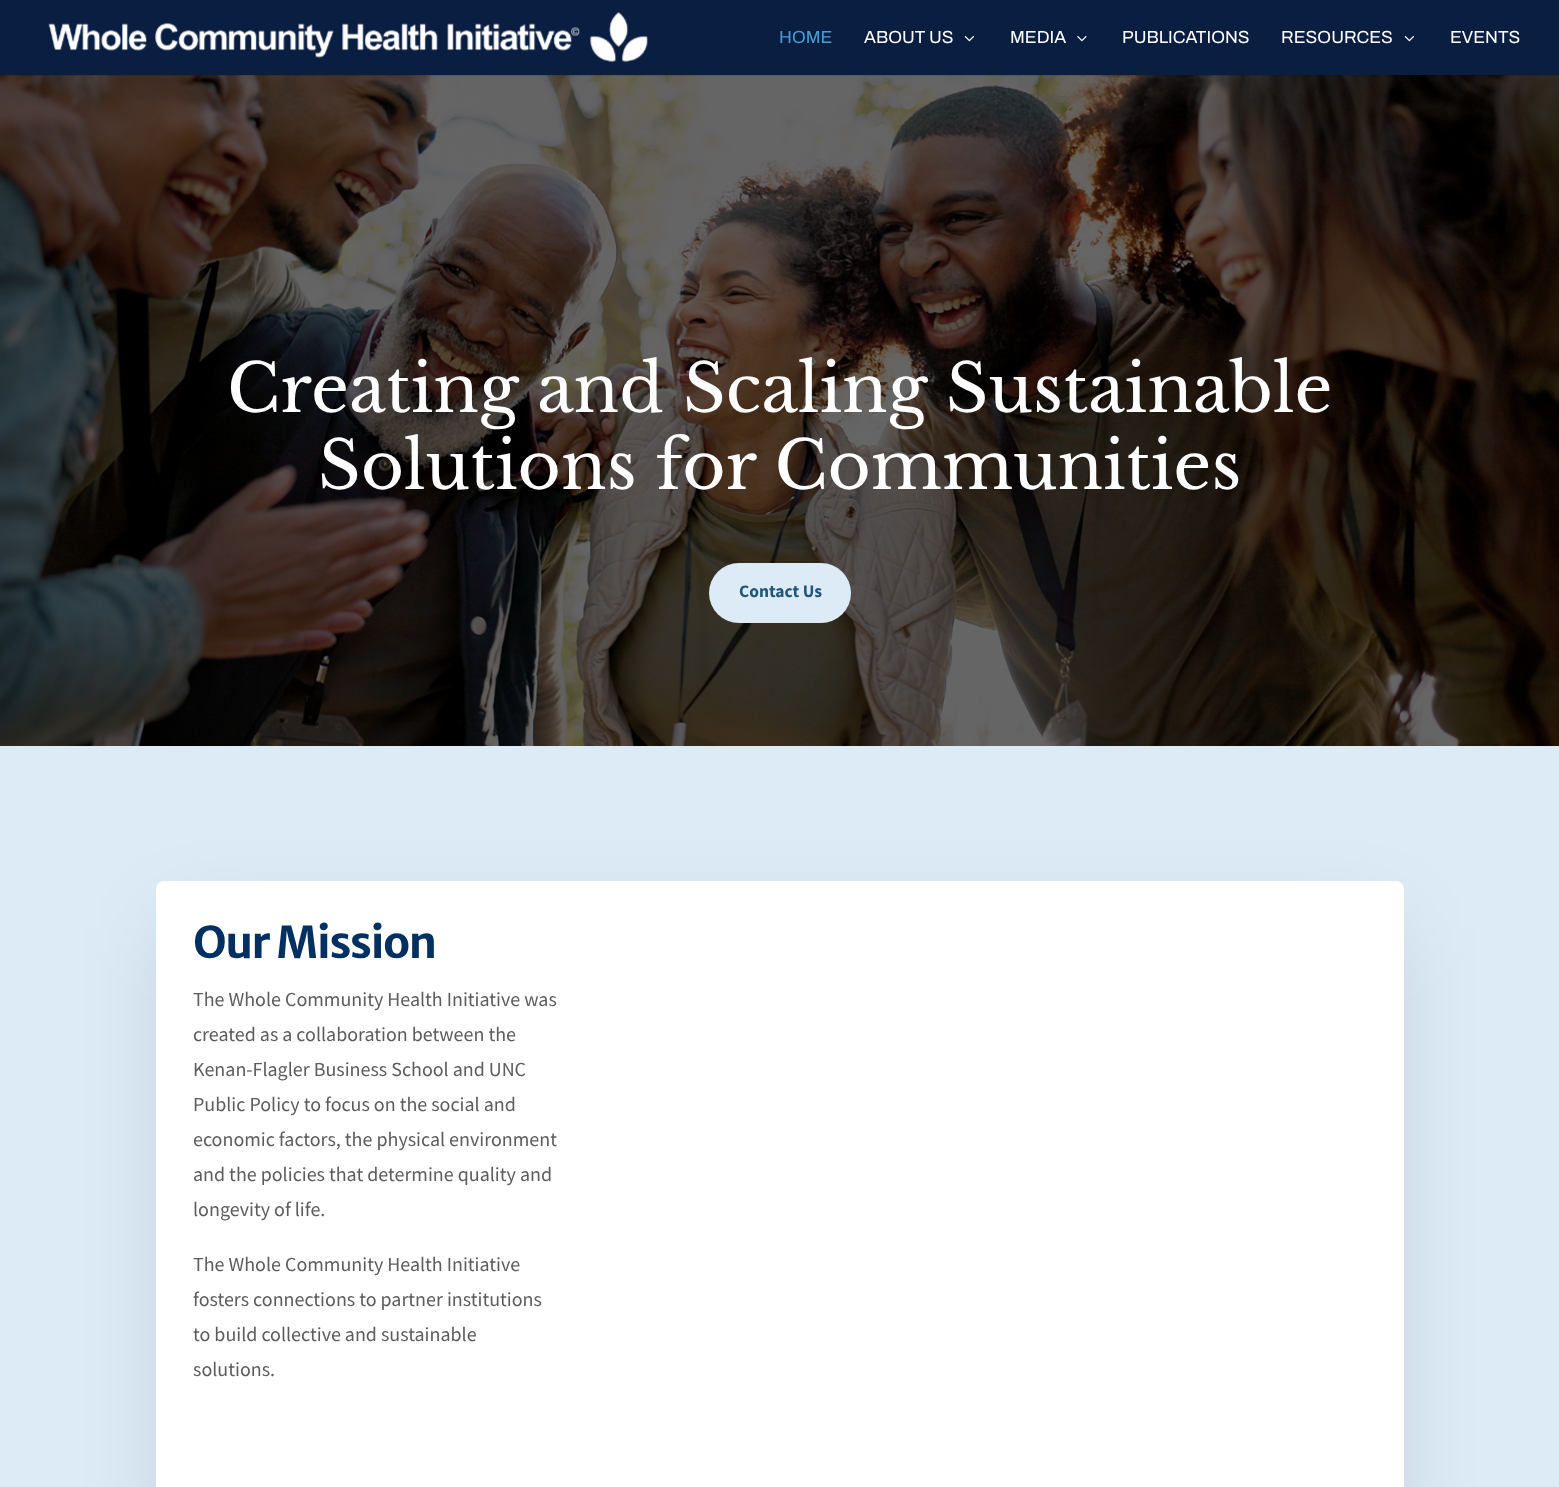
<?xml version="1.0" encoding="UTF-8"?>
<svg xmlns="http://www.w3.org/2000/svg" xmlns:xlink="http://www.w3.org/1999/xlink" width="1559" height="1487">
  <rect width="100%" height="100%" fill="#0a1e41" />
  <image x="0" y="75" width="1559" height="671" xlink:href="image4.png" />
  <rect y="75" width="1559" height="1" fill="#000000" fill-opacity="0.1" />
  <image x="48" y="12" width="600" height="50" xlink:href="image1.png" />
  <image x="964" y="36" width="10" height="6" xlink:href="image2.png" />
  <image x="1077" y="36" width="10" height="6" xlink:href="image3.png" />
  <image x="1404" y="36" width="10" height="6" xlink:href="image2.png" />
  <rect x="709" y="563" width="142" height="60" rx="30" fill="#ddebf7" />
  <rect y="746" width="1559" height="741" fill="#ddebf7" />
  <rect x="171" y="926" width="1218" height="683" fill="#000000" fill-opacity="0.12" filter="blur(45px)" />
  <rect x="156" y="881" width="1248" height="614" rx="8" fill="#ffffff" />
  <text x="779" y="43" style="font-family: Archivo; font-size: 17.5px; font-weight: 600; fill: #4b9cd3">HOME</text>
  <text x="864" y="43" style="font-family: Archivo; font-size: 17.5px; font-weight: 600; fill: #ffffff">ABOUT US</text>
  <text x="1010" y="43" style="font-family: Archivo; font-size: 17.5px; font-weight: 600; fill: #ffffff">MEDIA</text>
  <text x="1122" y="43" style="font-family: Archivo; font-size: 17.5px; font-weight: 600; fill: #ffffff">PUBLICATIONS</text>
  <text x="1281" y="43" style="font-family: Archivo; font-size: 17.5px; font-weight: 600; fill: #ffffff">RESOURCES</text>
  <text x="1450" y="43" style="font-family: Archivo; font-size: 17.5px; font-weight: 600; fill: #ffffff">EVENTS</text>
  <text x="227" y="412" style="font-family: Libre Baskerville; font-size: 66.25px; fill: #ffffff">Creating and Scaling Sustainable</text>
  <text x="318" y="489" style="font-family: Libre Baskerville; font-size: 66.25px; fill: #ffffff">Solutions for Communities</text>
  <text x="739" y="597" style="font-family: Source Sans Pro; font-size: 17.5px; font-weight: bold; fill: #22577a">Contact Us</text>
  <text x="193" y="958" style="font-family: Merriweather Sans; font-size: 43.75px; font-weight: bold; letter-spacing: -1.25px; fill: #033060">Our Mission</text>
  <text x="193" y="1006" style="font-family: Source Sans Pro; font-size: 20px; fill: #5c5c5c">The Whole Community Health Initiative was</text>
  <text x="193" y="1041" style="font-family: Source Sans Pro; font-size: 20px; fill: #5c5c5c">created as a collaboration between the</text>
  <text x="193" y="1076" style="font-family: Source Sans Pro; font-size: 20px; fill: #5c5c5c">Kenan-Flagler Business School and UNC</text>
  <text x="193" y="1111" style="font-family: Source Sans Pro; font-size: 20px; fill: #5c5c5c">Public Policy to focus on the social and</text>
  <text x="193" y="1146" style="font-family: Source Sans Pro; font-size: 20px; fill: #5c5c5c">economic factors, the physical environment</text>
  <text x="193" y="1181" style="font-family: Source Sans Pro; font-size: 20px; fill: #5c5c5c">and the policies that determine quality and</text>
  <text x="193" y="1216" style="font-family: Source Sans Pro; font-size: 20px; fill: #5c5c5c">longevity of life.</text>
  <text x="193" y="1271" style="font-family: Source Sans Pro; font-size: 20px; fill: #5c5c5c">The Whole Community Health Initiative</text>
  <text x="193" y="1306" style="font-family: Source Sans Pro; font-size: 20px; fill: #5c5c5c">fosters connections to partner institutions</text>
  <text x="193" y="1341" style="font-family: Source Sans Pro; font-size: 20px; fill: #5c5c5c">to build collective and sustainable</text>
  <text x="193" y="1376" style="font-family: Source Sans Pro; font-size: 20px; fill: #5c5c5c">solutions.</text>
</svg>
